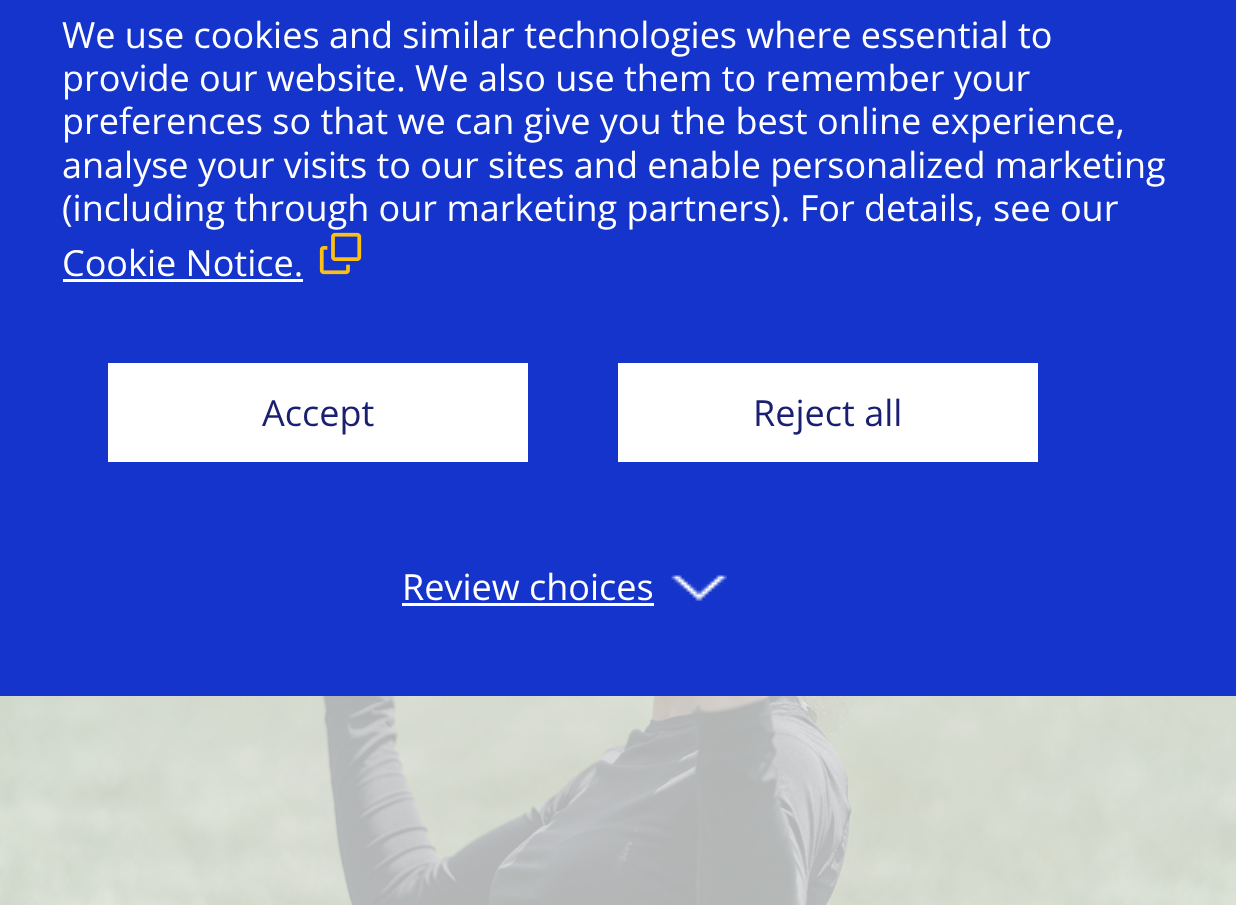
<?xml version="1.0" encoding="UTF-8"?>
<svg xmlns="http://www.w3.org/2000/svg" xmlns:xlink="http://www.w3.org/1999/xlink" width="1236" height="905">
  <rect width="100%" height="100%" fill="#ffffff" />
  <rect width="1236" height="696" fill="#1434cb" />
  <rect x="63" y="279" width="240" height="3" fill="#ffffff" />
  <image x="319" y="232" width="43" height="43" xlink:href="image1.png" />
  <rect x="108" y="363" width="420" height="99" fill="#ffffff" />
  <rect x="618" y="363" width="420" height="99" fill="#ffffff" />
  <rect x="402" y="603" width="252" height="3" fill="#ffffff" />
  <image x="671" y="575" width="56" height="26" xlink:href="image2.png" />
  <image x="0" y="696" width="1236" height="209" xlink:href="image3.png" />
  <text x="62" y="48" style="font-family: Open Sans; font-size: 36px; fill: #ffffff">We use cookies and similar technologies where essential to</text>
  <text x="62" y="91" style="font-family: Open Sans; font-size: 36px; fill: #ffffff">provide our website. We also use them to remember your</text>
  <text x="62" y="134" style="font-family: Open Sans; font-size: 36px; fill: #ffffff">preferences so that we can give you the best online experience,</text>
  <text x="62" y="178" style="font-family: Open Sans; font-size: 36px; fill: #ffffff">analyse your visits to our sites and enable personalized marketing</text>
  <text x="62" y="221" style="font-family: Open Sans; font-size: 36px; fill: #ffffff">(including through our marketing partners). For details, see our</text>
  <text x="62" y="276" style="font-family: Open Sans; font-size: 36px; fill: #ffffff">Cookie Notice.</text>
  <text x="262" y="426" style="font-family: Open Sans; font-size: 36px; fill: #1a1f72">Accept</text>
  <text x="753" y="426" style="font-family: Open Sans; font-size: 36px; fill: #1a1f72">Reject all</text>
  <text x="402" y="600" style="font-family: Open Sans; font-size: 36px; fill: #ffffff">Review choices</text>
</svg>
